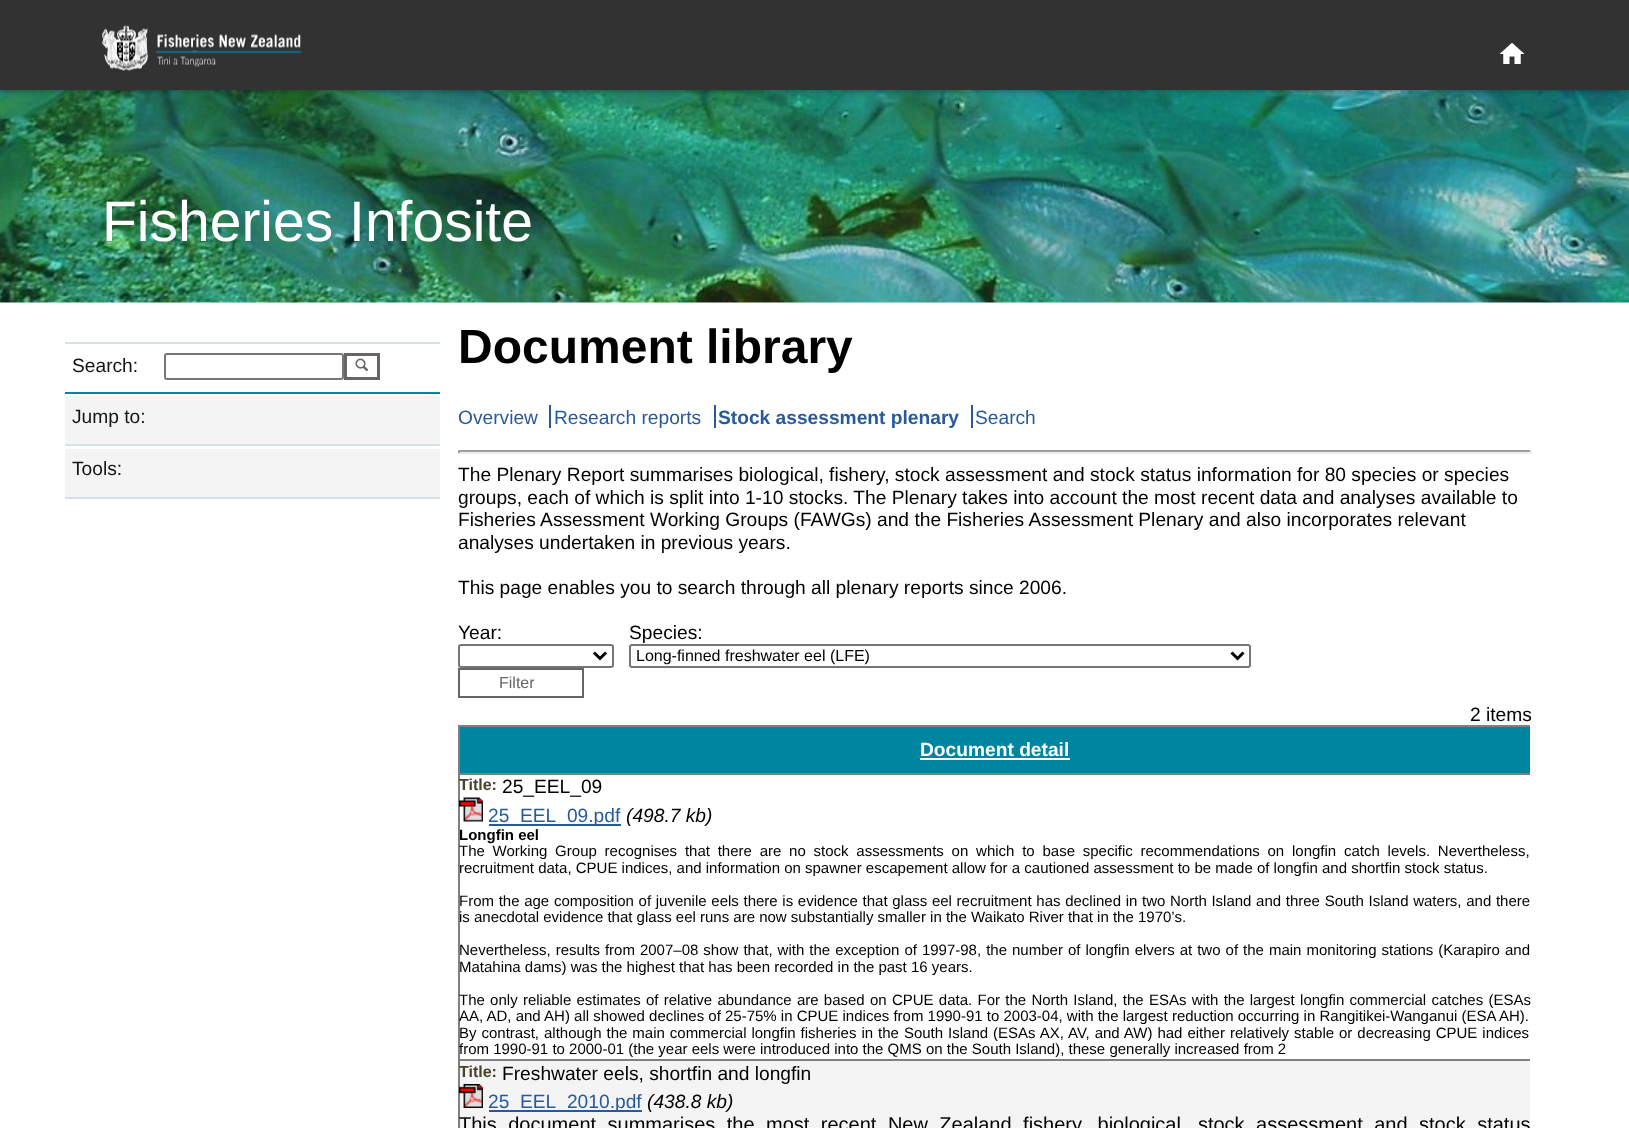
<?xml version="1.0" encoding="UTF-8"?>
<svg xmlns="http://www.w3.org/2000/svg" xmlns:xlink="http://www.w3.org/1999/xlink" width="1629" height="1128">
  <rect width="100%" height="100%" fill="#ffffff" />
  <image x="0" y="90" width="1629" height="213" xlink:href="image3.png" />
  <rect width="1629" height="90" fill="#000000" fill-opacity="0.4" filter="blur(3px)" />
  <rect width="1629" height="90" fill="#323232" />
  <image x="102" y="25" width="200" height="46" xlink:href="image1.png" />
  <image x="1499" y="42" width="26" height="22" xlink:href="image2.png" />
  <rect x="65" y="342" width="375" height="2" fill="#d7e2e7" />
  <rect x="65" y="392" width="375" height="2" fill="#0085a0" />
  <rect x="165" y="354" width="178" height="25" rx="2" fill="none" stroke="#767676" stroke-width="2" />
  <rect x="345.5" y="354.5" width="33" height="24" fill="none" stroke="#666666" stroke-width="3" />
  <image x="355" y="358" width="14" height="14" xlink:href="image4.png" />
  <rect x="65" y="396" width="375" height="48" fill="#f4f4f4" />
  <rect x="65" y="444" width="375" height="2" fill="#d7e2e7" />
  <rect x="65" y="449" width="375" height="48" fill="#f4f4f4" />
  <rect x="65" y="497" width="375" height="2" fill="#d7e2e7" />
  <rect x="549" y="405" width="2" height="23" fill="#285a9b" />
  <rect x="714" y="405" width="2" height="23" fill="#285a9b" />
  <rect x="971" y="405" width="2" height="23" fill="#285a9b" />
  <rect x="458" y="450" width="1074" height="2" fill="#9f9f9f" />
  <rect x="1530" y="450" width="2" height="3" fill="#eeeeee" />
  <rect x="458" y="452" width="1074" height="2" fill="#eeeeee" />
  <rect x="458" y="450" width="2" height="3" fill="#9f9f9f" />
  <rect x="459" y="645" width="154" height="22" rx="2" fill="none" stroke="#767676" stroke-width="2" />
  <path d="M 594 652.5 l 6 6 l 6 -6" fill="none" stroke="#000000" stroke-width="3" />
  <rect x="630" y="645" width="620" height="22" rx="2" fill="none" stroke="#767676" stroke-width="2" />
  <path d="M 1231.5 652.5 l 6 6 l 6 -6" fill="none" stroke="#000000" stroke-width="3" />
  <rect x="459" y="669" width="124" height="28" fill="none" stroke="#666666" stroke-width="2" />
  <rect x="460" y="727" width="1070" height="46" fill="#0085a0" />
  <rect x="458" y="725" width="1075" height="2" fill="#808080" />
  <rect x="458" y="773" width="1075" height="2" fill="#808080" />
  <rect x="458" y="1059" width="1075" height="2" fill="#808080" />
  <rect x="458" y="1059" width="2" height="69" fill="#808080" />
  <rect x="458" y="773" width="2" height="288" fill="#808080" />
  <rect x="458" y="725" width="2" height="49" fill="#808080" />
  <rect x="1530" y="725" width="3" height="2" fill="#ffffff" />
  <rect x="920" y="758" width="150" height="2" fill="#ffffff" />
  <rect x="1530" y="771" width="3" height="4" fill="#ffffff" />
  <image x="459" y="797" width="24" height="25" xlink:href="image5.png" />
  <rect x="489" y="824" width="132" height="2" fill="#285a9b" />
  <rect x="460" y="1061" width="1070" height="67" fill="#f4f4f4" />
  <rect x="1530" y="1058" width="3" height="3" fill="#ffffff" />
  <image x="459" y="1084" width="24" height="24" xlink:href="image6.png" />
  <rect x="489" y="1110" width="153" height="2" fill="#285a9b" />
  <text x="102" y="241" style="font-family: Liberation Sans; font-size: 57px; fill: #ffffff">Fisheries Infosite</text>
  <text x="72" y="372" style="font-family: Liberation Sans; font-size: 19.2px; fill: #151515">Search:</text>
  <text x="72" y="423" style="font-family: Liberation Sans; font-size: 19.2px; fill: #151515">Jump to:</text>
  <text x="72" y="475" style="font-family: Liberation Sans; font-size: 19.2px; fill: #151515">Tools:</text>
  <text x="458" y="363" style="font-family: Liberation Sans; font-size: 48px; font-weight: bold; fill: #000000">Document library</text>
  <text x="458" y="424" style="font-family: Liberation Sans; font-size: 19.2px; fill: #285a9b">Overview</text>
  <text x="554" y="424" style="font-family: Liberation Sans; font-size: 19.2px; fill: #285a9b">Research reports</text>
  <text x="718" y="424" style="font-family: Liberation Sans; font-size: 19.2px; font-weight: bold; fill: #285a9b">Stock assessment plenary</text>
  <text x="975" y="424" style="font-family: Liberation Sans; font-size: 19.2px; fill: #285a9b">Search</text>
  <text x="458" y="481" style="font-family: Liberation Sans; font-size: 19.2px; fill: #000000">The Plenary Report summarises biological, fishery, stock assessment and stock status information for 80 species or species</text>
  <text x="458" y="504" style="font-family: Liberation Sans; font-size: 19.2px; fill: #000000">groups, each of which is split into 1-10 stocks. The Plenary takes into account the most recent data and analyses available to</text>
  <text x="458" y="526" style="font-family: Liberation Sans; font-size: 19.2px; fill: #000000">Fisheries Assessment Working Groups (FAWGs) and the Fisheries Assessment Plenary and also incorporates relevant</text>
  <text x="458" y="549" style="font-family: Liberation Sans; font-size: 19.2px; fill: #000000">analyses undertaken in previous years.</text>
  <text x="458" y="594" style="font-family: Liberation Sans; font-size: 19.2px; fill: #000000">This page enables you to search through all plenary reports since 2006.</text>
  <text x="458" y="639" style="font-family: Liberation Sans; font-size: 19.2px; fill: #000000">Year:</text>
  <text x="629" y="639" style="font-family: Liberation Sans; font-size: 19.2px; fill: #000000">Species:</text>
  <text x="636" y="661" style="font-family: Liberation Sans; font-size: 16px; fill: #000000">Long-finned freshwater eel (LFE)</text>
  <text x="499" y="688" style="font-family: Liberation Sans; font-size: 16px; fill: #666666">Filter</text>
  <text x="1470" y="721" style="font-family: Liberation Sans; font-size: 19.2px; fill: #000000">2 items</text>
  <text x="920" y="756" style="font-family: Liberation Sans; font-size: 19.2px; font-weight: bold; fill: #ffffff">Document detail</text>
  <text x="459" y="790" style="font-family: Liberation Sans; font-size: 16px; font-weight: bold; fill: #49432c">Title:</text>
  <text x="502" y="793" style="font-family: Liberation Sans; font-size: 19.2px; fill: #000000">25_EEL_09</text>
  <text x="488" y="822" style="font-family: Liberation Sans; font-size: 19.2px; fill: #285a9b">25_EEL_09.pdf</text>
  <text x="626" y="822" style="font-family: Liberation Sans; font-size: 19.2px; font-style: italic; fill: #000000">(498.7 kb)</text>
  <text x="459" y="840" style="font-family: Liberation Sans; font-size: 15px; font-weight: bold; fill: #000000">Longfin eel</text>
  <text x="459" y="856" word-spacing="3.6" style="font-family: Liberation Sans; font-size: 15px; fill: #000000">The Working Group recognises that there are no stock assessments on which to base specific recommendations on longfin catch levels. Nevertheless,</text>
  <text x="459" y="873" style="font-family: Liberation Sans; font-size: 15px; fill: #000000">recruitment data, CPUE indices, and information on spawner escapement allow for a cautioned assessment to be made of longfin and shortfin stock status.</text>
  <text x="459" y="906" word-spacing="0.5" style="font-family: Liberation Sans; font-size: 15px; fill: #000000">From the age composition of juvenile eels there is evidence that glass eel recruitment has declined in two North Island and three South Island waters, and there</text>
  <text x="459" y="922" style="font-family: Liberation Sans; font-size: 15px; fill: #000000">is anecdotal evidence that glass eel runs are now substantially smaller in the Waikato River that in the 1970’s.</text>
  <text x="459" y="955" word-spacing="0.85" style="font-family: Liberation Sans; font-size: 15px; fill: #000000">Nevertheless, results from 2007–08 show that, with the exception of 1997-98, the number of longfin elvers at two of the main monitoring stations (Karapiro and</text>
  <text x="459" y="972" style="font-family: Liberation Sans; font-size: 15px; fill: #000000">Matahina dams) was the highest that has been recorded in the past 16 years.</text>
  <text x="459" y="1005" word-spacing="1.1" style="font-family: Liberation Sans; font-size: 15px; fill: #000000">The only reliable estimates of relative abundance are based on CPUE data. For the North Island, the ESAs with the largest longfin commercial catches (ESAs</text>
  <text x="459" y="1021" style="font-family: Liberation Sans; font-size: 15px; fill: #000000">AA, AD, and AH) all showed declines of 25-75% in CPUE indices from 1990-91 to 2003-04, with the largest reduction occurring in Rangitikei-Wanganui (ESA AH).</text>
  <text x="459" y="1038" word-spacing="0.8" style="font-family: Liberation Sans; font-size: 15px; fill: #000000">By contrast, although the main commercial longfin fisheries in the South Island (ESAs AX, AV, and AW) had either relatively stable or decreasing CPUE indices</text>
  <text x="459" y="1054" style="font-family: Liberation Sans; font-size: 15px; fill: #000000">from 1990-91 to 2000-01 (the year eels were introduced into the QMS on the South Island), these generally increased from 2</text>
  <text x="459" y="1077" style="font-family: Liberation Sans; font-size: 16px; font-weight: bold; fill: #49432c">Title:</text>
  <text x="502" y="1080" style="font-family: Liberation Sans; font-size: 19.2px; fill: #000000">Freshwater eels, shortfin and longfin</text>
  <text x="488" y="1108" style="font-family: Liberation Sans; font-size: 19.2px; fill: #285a9b">25_EEL_2010.pdf</text>
  <text x="647" y="1108" style="font-family: Liberation Sans; font-size: 19.2px; font-style: italic; fill: #000000">(438.8 kb)</text>
  <text x="459" y="1131" word-spacing="5.9" style="font-family: Liberation Sans; font-size: 20px; fill: #000000">This document summarises the most recent New Zealand fishery, biological, stock assessment and stock status</text>
</svg>
